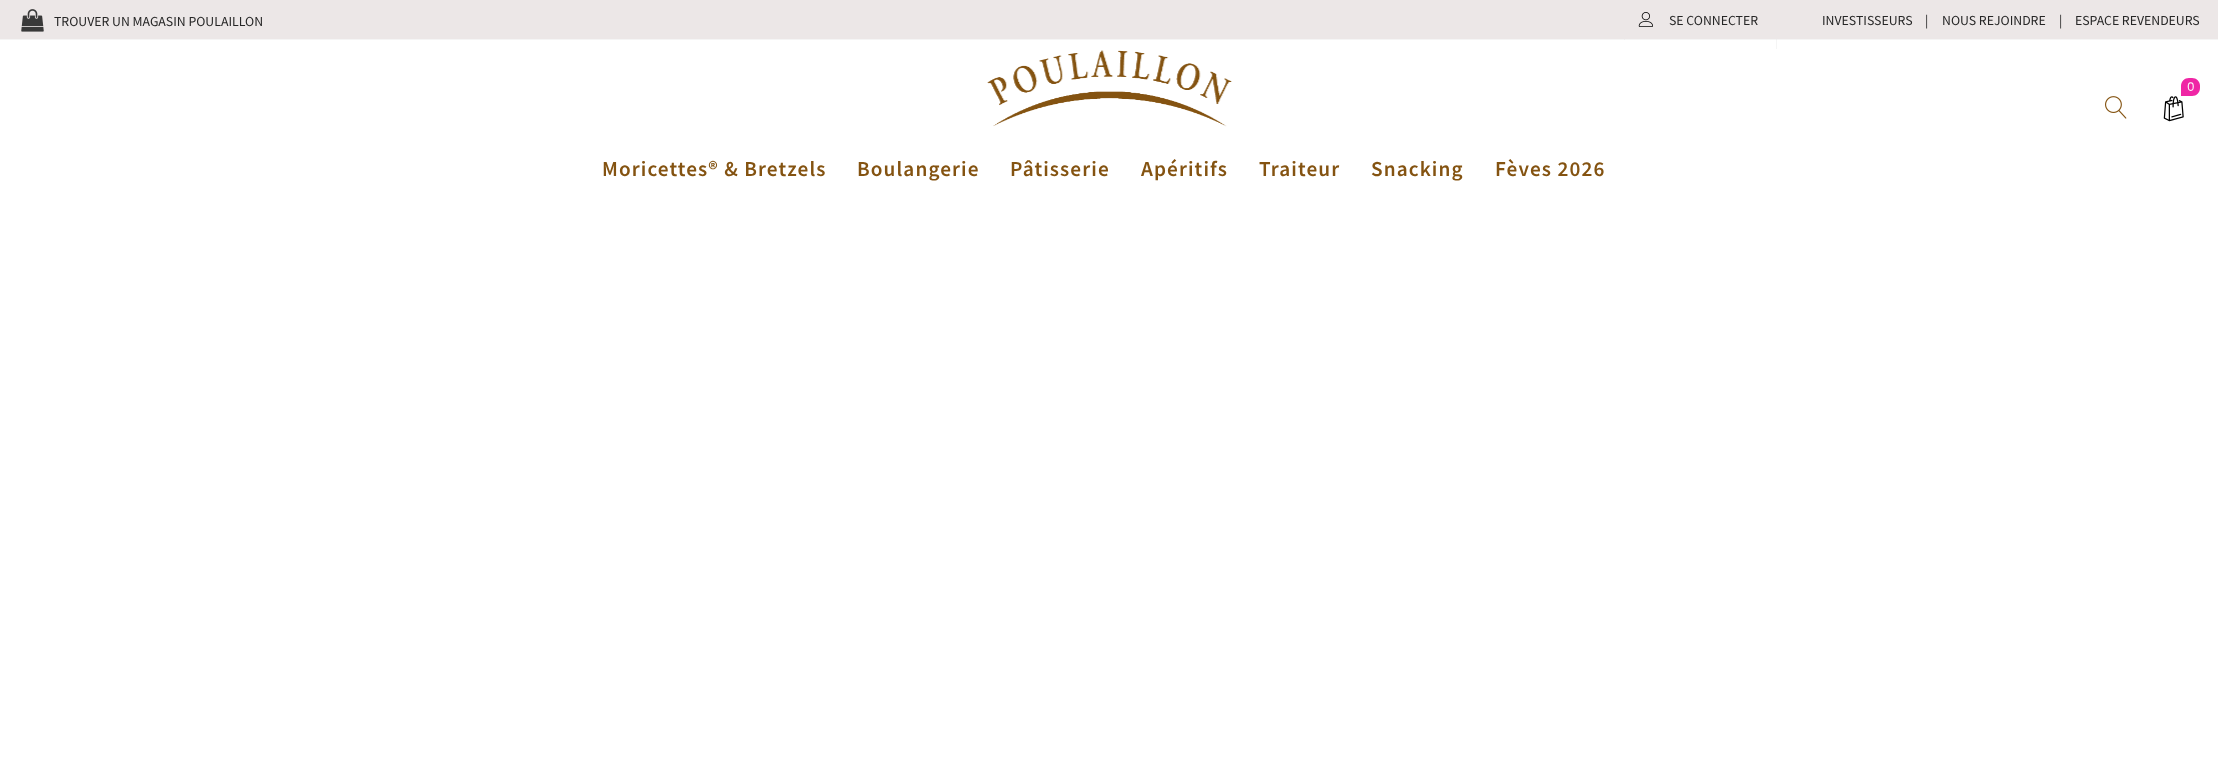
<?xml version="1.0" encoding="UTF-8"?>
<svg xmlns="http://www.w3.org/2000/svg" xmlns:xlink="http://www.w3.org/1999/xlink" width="2218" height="782">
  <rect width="100%" height="100%" fill="#ffffff" />
  <rect x="1776" y="40" width="1" height="9" fill="#f5f5f5" />
  <rect width="2218" height="39" fill="#ece7e7" />
  <rect x="1624" y="39" width="1" height="1" fill="#eae7e7" />
  <rect x="1776" y="39" width="1" height="1" fill="#eae7e7" />
  <rect y="39" width="2218" height="1" fill="#f5f5f5" />
  <rect x="1624" y="39" width="1" height="1" fill="#efefef" />
  <rect x="1776" y="39" width="1" height="1" fill="#efefef" />
  <image x="21" y="9" width="23" height="23" xlink:href="image1.png" />
  <image x="1638" y="12" width="15" height="15" xlink:href="image2.png" />
  <image x="987" y="50" width="245" height="77" xlink:href="image3.png" />
  <path d="M 2189 78 h 3 c 4.5 0 8 3.5 8 8 v 2 c 0 4.5 -3.5 8 -8 8 h -11 v -10 c 0 -4.5 3.5 -8 8 -8 z" fill="#ef26a5" />
  <image x="2163" y="96" width="21" height="26" xlink:href="image4.png" />
  <image x="2105" y="96" width="22" height="23" xlink:href="image5.png" />
  <text x="54" y="26" style="font-family: Source Sans Pro; font-size: 13.75px; fill: #262626">TROUVER UN MAGASIN POULAILLON</text>
  <text x="1669" y="25" style="font-family: Source Sans Pro; font-size: 13.75px; fill: #262626">SE CONNECTER</text>
  <text x="1822" y="25" style="font-family: Source Sans Pro; font-size: 13.75px; fill: #262626">INVESTISSEURS</text>
  <text x="1925" y="25" style="font-family: Source Sans Pro; font-size: 13.75px; fill: #262626">|</text>
  <text x="1942" y="25" style="font-family: Source Sans Pro; font-size: 13.75px; fill: #262626">NOUS REJOINDRE</text>
  <text x="2059" y="25" style="font-family: Source Sans Pro; font-size: 13.75px; fill: #262626">|</text>
  <text x="2075" y="25" style="font-family: Source Sans Pro; font-size: 13.75px; fill: #262626">ESPACE REVENDEURS</text>
  <text x="2187" y="91" style="font-family: Poppins; font-size: 12px; fill: #fafafa">0</text>
  <text x="602" y="176" style="font-family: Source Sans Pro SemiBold; font-size: 21.25px; font-weight: 600; letter-spacing: 1.1px; fill: #845311">Moricettes® &amp; Bretzels</text>
  <text x="857" y="176" style="font-family: Source Sans Pro SemiBold; font-size: 21.25px; font-weight: 600; letter-spacing: 1.1px; fill: #845311">Boulangerie</text>
  <text x="1010" y="176" style="font-family: Source Sans Pro SemiBold; font-size: 21.25px; font-weight: 600; letter-spacing: 1.1px; fill: #845311">Pâtisserie</text>
  <text x="1141" y="176" style="font-family: Source Sans Pro SemiBold; font-size: 21.25px; font-weight: 600; letter-spacing: 1.1px; fill: #845311">Apéritifs</text>
  <text x="1259" y="176" style="font-family: Source Sans Pro SemiBold; font-size: 21.25px; font-weight: 600; letter-spacing: 1.1px; fill: #845311">Traiteur</text>
  <text x="1371" y="176" style="font-family: Source Sans Pro SemiBold; font-size: 21.25px; font-weight: 600; letter-spacing: 1.1px; fill: #845311">Snacking</text>
  <text x="1495" y="176" style="font-family: Source Sans Pro SemiBold; font-size: 21.25px; font-weight: 600; letter-spacing: 1.1px; fill: #845311">Fèves 2026</text>
</svg>
